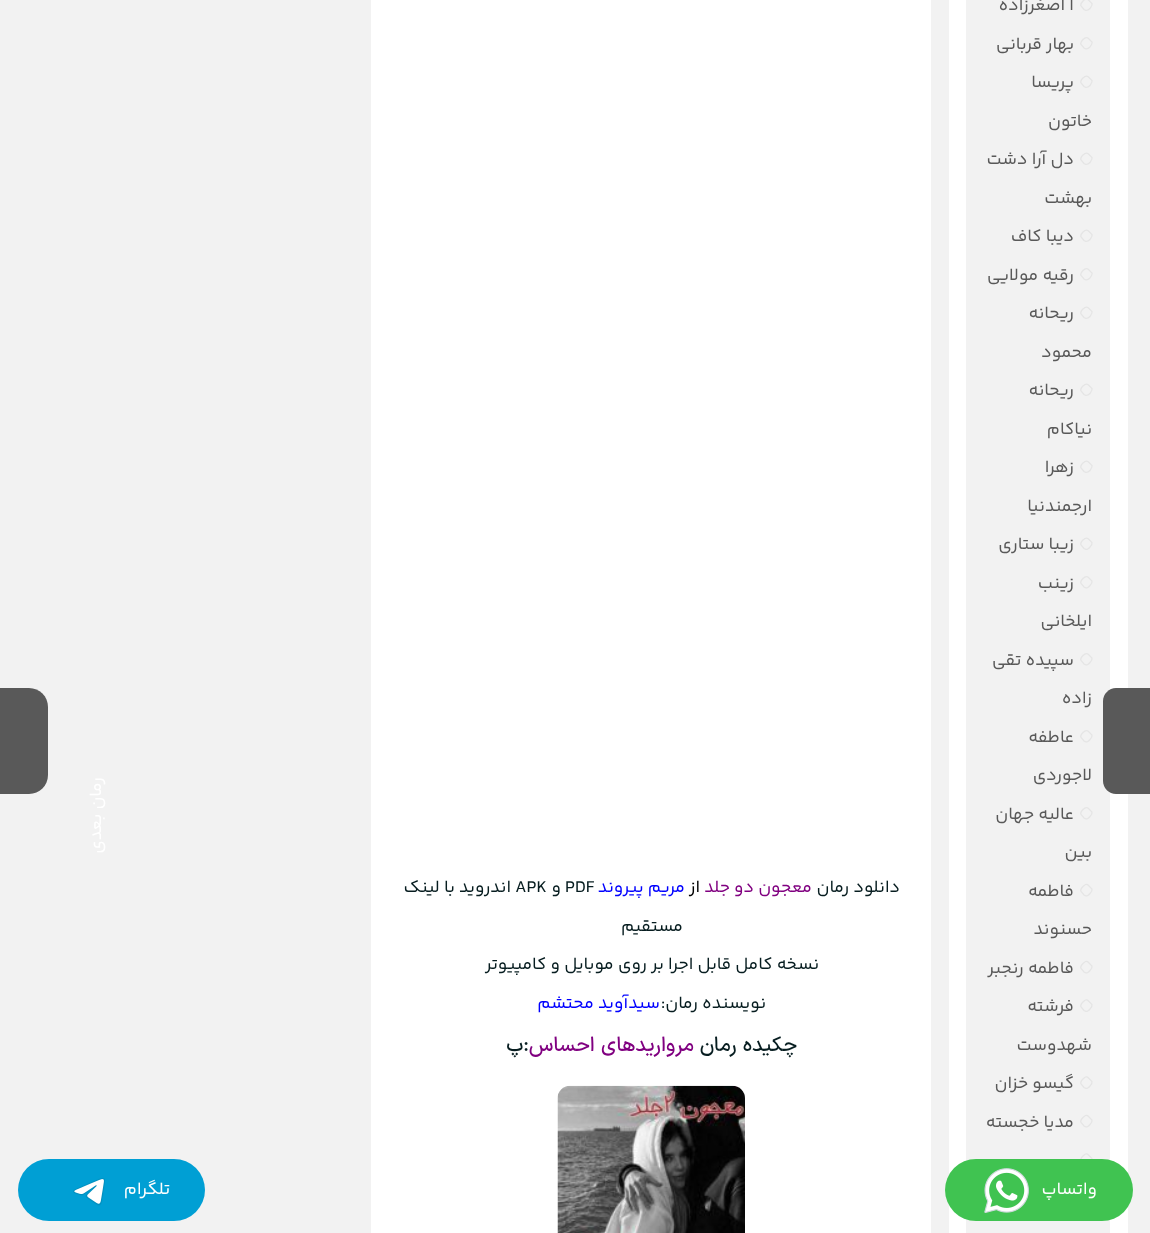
<?xml version="1.0" encoding="UTF-8"?>
<svg xmlns="http://www.w3.org/2000/svg" xmlns:xlink="http://www.w3.org/1999/xlink" width="1150" height="1233">
  <rect width="100%" height="100%" fill="#f2f2f2" />
  <rect x="949" width="179" height="1233" fill="#ffffff" />
  <rect x="966" width="144" height="1233" fill="#f2f2f2" />
  <path d="M 1088.5 0 l 3.5 3.5 c 0.5 2 -1 3.5 -2 5 c -1.5 1.5 -3.5 3 -6 1 l -3 -3.5 c -1 -2 0.5 -3.5 2 -5 c 1.5 -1.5 3.5 -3 5.5 -1 z m 0 38.5 l 3.5 3.5 c 0.5 2 -1 3.5 -2 5 c -1.5 1.5 -3.5 3 -6 1 l -3 -3.5 c -1 -2 0.5 -3.5 2 -5 c 1.5 -1.5 3.5 -3 5.5 -1 z" fill="none" stroke="#e5e5e5" stroke-width="1.3" />
  <path d="M 1088.5 77 l 3.5 3.5 c 0.5 2 -1 3.5 -2 5 c -1.5 1.5 -3.5 3 -6 1 l -3 -3.5 c -1 -2 0.5 -3.5 2 -5 c 1.5 -1.5 3.5 -3 5.5 -1 z" fill="none" stroke="#e5e5e5" stroke-width="1.3" />
  <path d="M 1088.5 154 l 3.5 3.5 c 0.5 2 -1 3.5 -2 5 c -1.5 1.5 -3.5 3 -6 1 l -3 -3.5 c -1 -2 0.5 -3.5 2 -5 c 1.5 -1.5 3.5 -3 5.5 -1 z" fill="none" stroke="#e5e5e5" stroke-width="1.3" />
  <path d="M 1088.5 231 l 3.5 3.5 c 0.5 2 -1 3.5 -2 5 c -1.5 1.5 -3.5 3 -6 1 l -3 -3.5 c -1 -2 0.5 -3.5 2 -5 c 1.5 -1.5 3.5 -3 5.5 -1 z m 0 38.5 l 3.5 3.5 c 0.5 2 -1 3.5 -2 5 c -1.5 1.5 -3.5 3 -6 1 l -3 -3.5 c -1 -2 0.5 -3.5 2 -5 c 1.5 -1.5 3.5 -3 5.5 -1 z" fill="none" stroke="#e5e5e5" stroke-width="1.3" />
  <path d="M 1088.5 308 l 3.5 3.5 c 0.5 2 -1 3.5 -2 5 c -1.5 1.5 -3.5 3 -6 1 l -3 -3.5 c -1 -2 0.5 -3.5 2 -5 c 1.5 -1.5 3.5 -3 5.5 -1 z" fill="none" stroke="#e5e5e5" stroke-width="1.3" />
  <path d="M 1088.5 385 l 3.5 3.5 c 0.5 2 -1 3.5 -2 5 c -1.5 1.5 -3.5 3 -6 1 l -3 -3.5 c -1 -2 0.5 -3.5 2 -5 c 1.5 -1.5 3.5 -3 5.5 -1 z" fill="none" stroke="#e5e5e5" stroke-width="1.3" />
  <path d="M 1088.5 462 l 3.5 3.5 c 0.5 2 -1 3.5 -2 5 c -1.5 1.5 -3.5 3 -6 1 l -3 -3.5 c -1 -2 0.5 -3.5 2 -5 c 1.5 -1.5 3.5 -3 5.5 -1 z" fill="none" stroke="#e5e5e5" stroke-width="1.3" />
  <path d="M 1088.5 539 l 3.5 3.5 c 0.5 2 -1 3.5 -2 4.5 c -1.5 2 -3.5 3.5 -6 1.5 l -3 -3.5 c -1 -2 0.5 -3.5 2 -5 c 1.5 -1.5 3.5 -3 5.5 -1 z m 0 38.5 l 3.5 3.5 c 0.5 2 -1 3.5 -2 4.5 c -1.5 2 -3.5 3.5 -6 1.5 l -3 -3.5 c -1 -2 0.5 -3.5 2 -5 c 1.5 -1.5 3.5 -3 5.5 -1 z" fill="none" stroke="#e5e5e5" stroke-width="1.3" />
  <path d="M 1088.5 654.5 l 3.5 3.5 c 0.5 2 -1 3.5 -2 4.5 c -1.5 2 -3.5 3.5 -6 1.5 l -3 -3.5 c -1 -2 0.5 -3.5 2 -5 c 1.5 -1.5 3.5 -3 5.5 -1 z" fill="none" stroke="#e5e5e5" stroke-width="1.3" />
  <path d="M 1088.5 731.5 l 3.5 3.5 c 0.5 2 -1 3.5 -2 4.5 c -1.5 2 -3.5 3.5 -6 1.5 l -3 -3.5 c -1 -2 0.5 -3.5 2 -5 c 1.5 -1.5 3.5 -3 5.5 -1 z" fill="none" stroke="#e5e5e5" stroke-width="1.3" />
  <path d="M 1088.5 808.5 l 3.5 3.5 c 0.5 2 -1 3.5 -2 4.5 c -1.5 2 -3.5 3.5 -6 1.5 l -3 -3.5 c -1 -2 0.5 -3.5 2 -5 c 1.5 -1.5 3.5 -3 5.5 -1 z" fill="none" stroke="#e5e5e5" stroke-width="1.3" />
  <path d="M 1088.5 885.5 l 3.5 3.5 c 0.5 2 -1 3.5 -2 4.5 c -1.5 2 -3.5 3.5 -6 1.5 l -3 -3.5 c -1 -2 0.5 -3.5 2 -5 c 1.5 -1.5 3.5 -3.5 5.5 -1 z" fill="none" stroke="#e5e5e5" stroke-width="1.3" />
  <path d="M 1088.5 962.5 l 3.5 3.5 c 0.5 2 -1 3.5 -2 4.5 c -1.5 2 -3.5 3.5 -6 1.5 l -3 -3.5 c -1 -2 0.5 -3.5 2 -5 c 1.5 -1.5 3.5 -3.5 5.5 -1 z m 0 38.5 l 3.5 3.5 c 0.5 2 -1 3.5 -2 4.5 c -1.5 2 -3.5 3.5 -6 1.5 l -3 -3.5 c -1 -2 0.5 -3.5 2 -5 c 1.5 -1.5 3.5 -3.5 5.5 -1 z" fill="none" stroke="#e5e5e5" stroke-width="1.3" />
  <path d="M 1088.5 1078 l 3.5 3.5 c 0.5 2 -1 3.5 -2 4.5 c -1.5 2 -3.5 3.5 -6 1.5 l -3 -3.5 c -1 -2 0.5 -3.5 2 -5 c 1.5 -1.5 3.5 -3.5 5.5 -1 z m 0 38.5 l 3.5 3.5 c 0.5 2 -1 3.5 -2 4.5 c -1.5 2 -3.5 3.5 -6 1.5 l -3 -3.5 c -1 -2 0.5 -3.5 2 -5 c 1.5 -1.5 3.5 -3.5 5.5 -1 z" fill="none" stroke="#e5e5e5" stroke-width="1.3" />
  <path d="M 1088.5 1155 l 3.5 3.5 c 0.5 2 -1 3.5 -2 4.5 c -1.5 2 -3.5 3.5 -6 1.5 l -3 -3.5 c -1 -2 0.5 -3.5 2 -5 c 1.5 -1.5 3.5 -3.5 5.5 -1 z" fill="none" stroke="#e5e5e5" stroke-width="1.3" />
  <path d="M 1116 688 h 34 v 106 h -34 c -7 0 -13 -6 -13 -13 v -80 c 0 -7 6 -13 13 -13 z" fill="#595959" />
  <path d="M 0 688 h 29 c 10.5 0 19 8.5 19 19 v 68 c 0 10.5 -8.5 19 -19 19 h -29 z" fill="#595959" />
  <rect x="371" width="560" height="1233" fill="#ffffff" />
  <image x="557" y="1085" width="188" height="148" xlink:href="image1.png" />
  <rect x="945" y="1159" width="188" height="62" rx="31" fill="#40c351" />
  <image x="984" y="1168" width="45" height="45" xlink:href="image2.png" />
  <rect x="18" y="1159" width="187" height="62" rx="31" fill="#009fd4" />
  <image x="73" y="1178" width="32" height="28" xlink:href="image3.png" />
  <text x="1074" y="10" style="font-family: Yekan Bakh; font-size: 17.5px; direction: rtl; fill: #595959">ا اصغرزاده</text>
  <text x="1074" y="49" style="font-family: Yekan Bakh; font-size: 17.5px; direction: rtl; fill: #595959">بهار قربانی</text>
  <text x="1074" y="87" style="font-family: Yekan Bakh; font-size: 17.5px; direction: rtl; fill: #595959">پریسا</text>
  <text x="1092" y="126" style="font-family: Yekan Bakh; font-size: 17.5px; direction: rtl; fill: #595959">خاتون</text>
  <text x="1074" y="164" style="font-family: Yekan Bakh; font-size: 17.5px; direction: rtl; fill: #595959">دل آرا دشت</text>
  <text x="1092" y="203" style="font-family: Yekan Bakh; font-size: 17.5px; direction: rtl; fill: #595959">بهشت</text>
  <text x="1074" y="241" style="font-family: Yekan Bakh; font-size: 17.5px; direction: rtl; fill: #595959">دیبا کاف</text>
  <text x="1074" y="280" style="font-family: Yekan Bakh; font-size: 17.5px; direction: rtl; fill: #595959">رقیه مولایی</text>
  <text x="1074" y="318" style="font-family: Yekan Bakh; font-size: 17.5px; direction: rtl; fill: #595959">ریحانه</text>
  <text x="1092" y="357" style="font-family: Yekan Bakh; font-size: 17.5px; direction: rtl; fill: #595959">محمود</text>
  <text x="1074" y="395" style="font-family: Yekan Bakh; font-size: 17.5px; direction: rtl; fill: #595959">ریحانه</text>
  <text x="1092" y="434" style="font-family: Yekan Bakh; font-size: 17.5px; direction: rtl; fill: #595959">نیاکام</text>
  <text x="1074" y="472" style="font-family: Yekan Bakh; font-size: 17.5px; direction: rtl; fill: #595959">زهرا</text>
  <text x="1092" y="511" style="font-family: Yekan Bakh; font-size: 17.5px; direction: rtl; fill: #595959">ارجمندنیا</text>
  <text x="1074" y="549" style="font-family: Yekan Bakh; font-size: 17.5px; direction: rtl; fill: #595959">زیبا ستاری</text>
  <text x="1074" y="588" style="font-family: Yekan Bakh; font-size: 17.5px; direction: rtl; fill: #595959">زینب</text>
  <text x="1092" y="626" style="font-family: Yekan Bakh; font-size: 17.5px; direction: rtl; fill: #595959">ایلخانی</text>
  <text x="1074" y="665" style="font-family: Yekan Bakh; font-size: 17.5px; direction: rtl; fill: #595959">سپیده تقی</text>
  <text x="1092" y="703" style="font-family: Yekan Bakh; font-size: 17.5px; direction: rtl; fill: #595959">زاده</text>
  <text x="1074" y="742" style="font-family: Yekan Bakh; font-size: 17.5px; direction: rtl; fill: #595959">عاطفه</text>
  <text x="1092" y="780" style="font-family: Yekan Bakh; font-size: 17.5px; direction: rtl; fill: #595959">لاجوردی</text>
  <text x="1074" y="819" style="font-family: Yekan Bakh; font-size: 17.5px; direction: rtl; fill: #595959">عالیه جهان</text>
  <text x="1092" y="857" style="font-family: Yekan Bakh; font-size: 17.5px; direction: rtl; fill: #595959">بین</text>
  <text x="1074" y="896" style="font-family: Yekan Bakh; font-size: 17.5px; direction: rtl; fill: #595959">فاطمه</text>
  <text x="1092" y="934" style="font-family: Yekan Bakh; font-size: 17.5px; direction: rtl; fill: #595959">حسنوند</text>
  <text x="1074" y="973" style="font-family: Yekan Bakh; font-size: 17.5px; direction: rtl; fill: #595959">فاطمه رنجبر</text>
  <text x="1074" y="1011" style="font-family: Yekan Bakh; font-size: 17.5px; direction: rtl; fill: #595959">فرشته</text>
  <text x="1092" y="1050" style="font-family: Yekan Bakh; font-size: 17.5px; direction: rtl; fill: #595959">شهدوست</text>
  <text x="1074" y="1088" style="font-family: Yekan Bakh; font-size: 17.5px; direction: rtl; fill: #595959">گیسو خزان</text>
  <text x="1074" y="1127" style="font-family: Yekan Bakh; font-size: 17.5px; direction: rtl; fill: #595959">مدیا خجسته</text>
  <text x="1202" y="769" transform="rotate(-90 1202 769)" style="font-family: Yekan Bakh; font-size: 17.5px; direction: rtl; fill: #ffffff">رمان قبلی</text>
  <text x="101" y="777" transform="rotate(-90 101 777)" style="font-family: Yekan Bakh; font-size: 17.5px; direction: rtl; fill: #ffffff">رمان بعدی</text>
  <text x="900" y="892" style="font-family: Yekan Bakh; font-size: 17.5px; direction: rtl; fill: #071d20">دانلود رمان</text>
  <text x="812" y="892" style="font-family: Yekan Bakh; font-size: 17.5px; direction: rtl; fill: #800080">معجون دو جلد</text>
  <text x="700" y="892" style="font-family: Yekan Bakh; font-size: 17.5px; direction: rtl; fill: #000000">از</text>
  <text x="685" y="892" style="font-family: Yekan Bakh; font-size: 17.5px; direction: rtl; fill: #0000ff">مریم پیروند</text>
  <text x="565" y="892" style="font-family: Yekan Bakh; font-size: 17.5px; fill: #071d20">PDF</text>
  <text x="561" y="892" style="font-family: Yekan Bakh; font-size: 17.5px; direction: rtl; fill: #071d20">و</text>
  <text x="515" y="892" style="font-family: Yekan Bakh; font-size: 17.5px; fill: #071d20">APK</text>
  <text x="511" y="892" style="font-family: Yekan Bakh; font-size: 17.5px; direction: rtl; fill: #071d20">اندروید با لینک</text>
  <text x="683" y="931" style="font-family: Yekan Bakh; font-size: 17.5px; direction: rtl; fill: #071d20">مستقیم</text>
  <text x="819" y="969" style="font-family: Yekan Bakh; font-size: 17.5px; direction: rtl; fill: #071d20">نسخه کامل قابل اجرا بر روی موبایل و کامپیوتر</text>
  <text x="766" y="1008" style="font-family: Yekan Bakh; font-size: 17.5px; direction: rtl; fill: #071d20">نویسنده رمان:</text>
  <text x="660" y="1008" style="font-family: Yekan Bakh; font-size: 17.5px; direction: rtl; fill: #0000ff">سیدآوید محتشم</text>
  <text x="797" y="1051" style="font-family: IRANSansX; font-size: 20.5px; font-weight: 500; direction: rtl; fill: #071d20">چکیده رمان</text>
  <text x="694" y="1051" style="font-family: IRANSansX; font-size: 20.5px; font-weight: 500; direction: rtl; fill: #800080">مرواریدهای احساس</text>
  <text x="529" y="1051" style="font-family: IRANSansX; font-size: 20.5px; font-weight: 500; direction: rtl; fill: #071d20">:پ</text>
  <text x="1097" y="1194" style="font-family: Yekan Bakh; font-size: 17.5px; direction: rtl; fill: #ffffff">واتساپ</text>
  <text x="170" y="1194" style="font-family: Yekan Bakh; font-size: 17.5px; direction: rtl; fill: #ffffff">تلگرام</text>
</svg>
